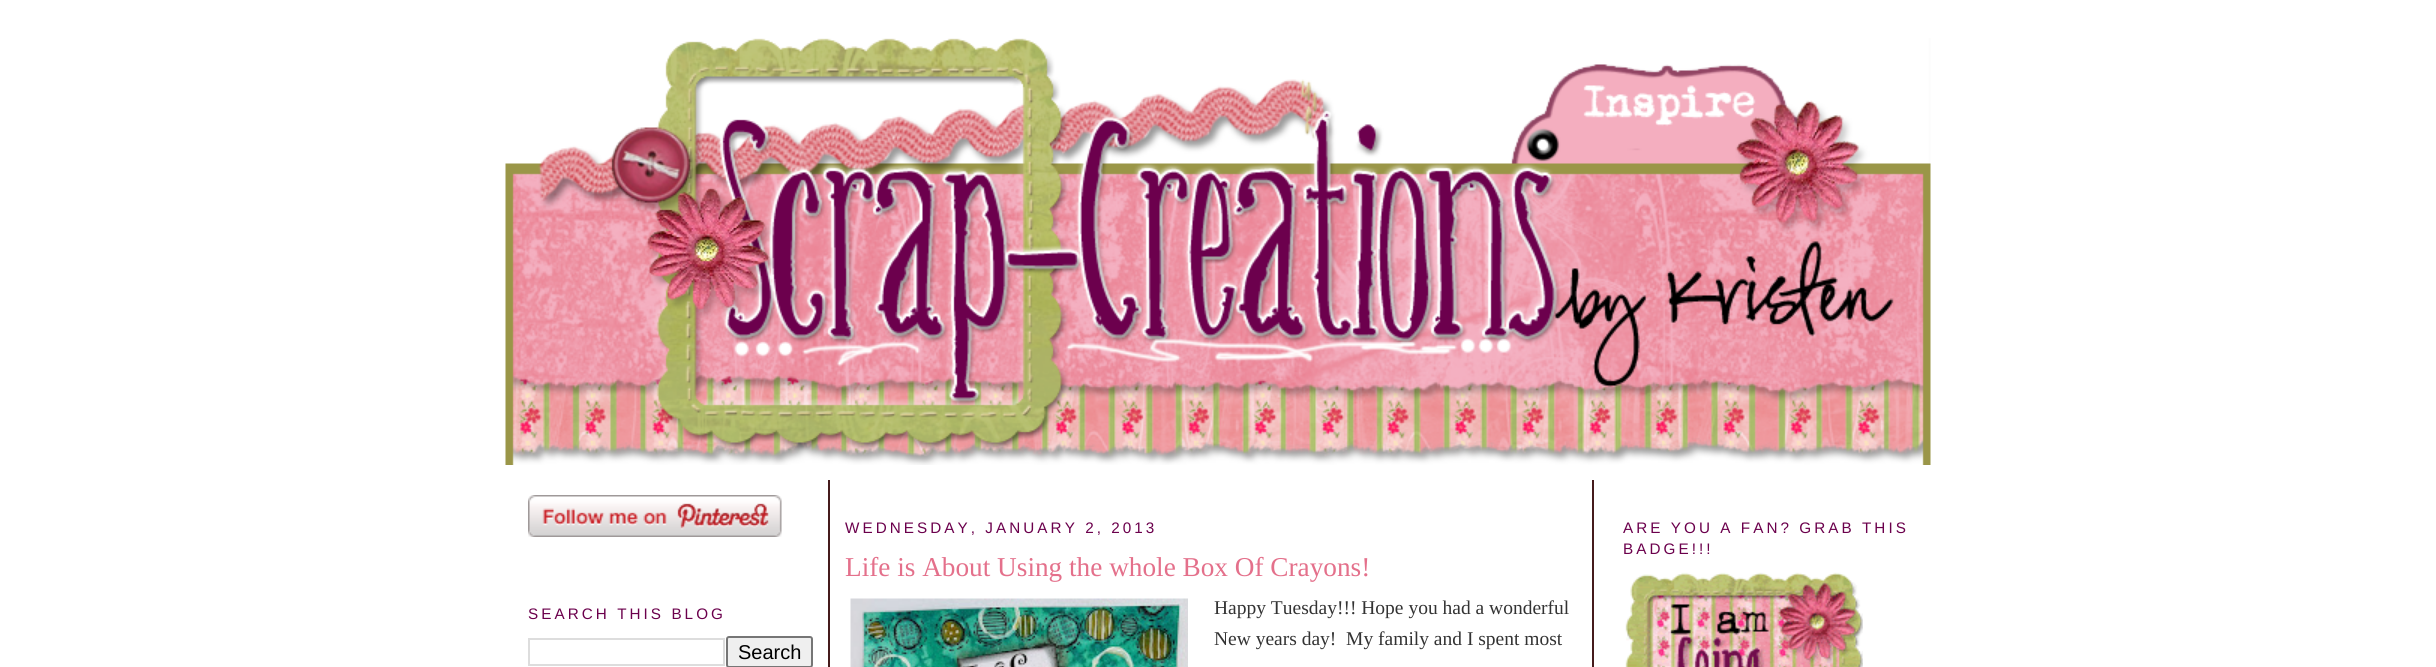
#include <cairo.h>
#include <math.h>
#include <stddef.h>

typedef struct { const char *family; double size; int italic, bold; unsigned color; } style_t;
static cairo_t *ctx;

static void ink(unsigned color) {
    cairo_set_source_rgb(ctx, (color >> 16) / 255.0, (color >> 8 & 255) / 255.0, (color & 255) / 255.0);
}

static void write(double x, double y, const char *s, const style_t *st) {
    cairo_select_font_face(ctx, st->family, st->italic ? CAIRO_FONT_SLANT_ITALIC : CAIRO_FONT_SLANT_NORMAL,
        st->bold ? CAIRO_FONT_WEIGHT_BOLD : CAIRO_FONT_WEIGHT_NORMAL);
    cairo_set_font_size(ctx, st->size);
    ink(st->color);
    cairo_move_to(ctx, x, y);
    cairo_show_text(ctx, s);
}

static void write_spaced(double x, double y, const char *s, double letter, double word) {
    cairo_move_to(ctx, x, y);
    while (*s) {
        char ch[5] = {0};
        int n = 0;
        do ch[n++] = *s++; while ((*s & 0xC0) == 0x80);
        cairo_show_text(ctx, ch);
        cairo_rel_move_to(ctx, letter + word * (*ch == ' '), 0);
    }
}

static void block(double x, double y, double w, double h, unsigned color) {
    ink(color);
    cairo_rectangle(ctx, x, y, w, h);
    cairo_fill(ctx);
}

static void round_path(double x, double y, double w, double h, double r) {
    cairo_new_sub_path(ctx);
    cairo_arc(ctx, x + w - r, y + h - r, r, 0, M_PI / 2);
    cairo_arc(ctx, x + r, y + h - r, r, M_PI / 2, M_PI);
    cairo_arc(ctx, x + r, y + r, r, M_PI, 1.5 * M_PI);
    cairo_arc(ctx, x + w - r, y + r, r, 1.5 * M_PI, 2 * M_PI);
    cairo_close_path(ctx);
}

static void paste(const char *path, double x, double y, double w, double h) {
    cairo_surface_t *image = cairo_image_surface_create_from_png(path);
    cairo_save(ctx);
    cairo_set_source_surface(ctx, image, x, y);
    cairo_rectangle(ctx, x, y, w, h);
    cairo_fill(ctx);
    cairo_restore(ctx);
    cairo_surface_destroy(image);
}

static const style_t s1 = {"Liberation Serif", 27.25, 0, 0, 0xe4708b};
static const style_t s2 = {"Liberation Serif", 19.5, 0, 0, 0x333333};
static const style_t s3 = {"Liberation Sans", 20, 0, 0, 0x000000};

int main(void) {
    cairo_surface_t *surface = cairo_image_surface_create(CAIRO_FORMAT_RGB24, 2436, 667);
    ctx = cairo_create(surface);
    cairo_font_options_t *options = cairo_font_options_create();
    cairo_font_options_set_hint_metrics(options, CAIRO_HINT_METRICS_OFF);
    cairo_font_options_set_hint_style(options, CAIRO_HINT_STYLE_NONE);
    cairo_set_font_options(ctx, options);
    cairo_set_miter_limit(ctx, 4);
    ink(0xffffff);
    cairo_paint(ctx);
    paste("pic1.png", 505, 38, 1426, 427);
    block(1592, 480, 2, 187, 0x451b1c);
    block(828, 480, 2, 187, 0x451b1c);
    cairo_select_font_face(ctx, "Liberation Sans", CAIRO_FONT_SLANT_NORMAL, CAIRO_FONT_WEIGHT_NORMAL);
    cairo_set_font_size(ctx, 15.25);
    ink(0x6b004c);
    write_spaced(845, 533, "WEDNESDAY, JANUARY 2, 2013", 3.05, 0);
    write(845, 576, "Life is About Using the whole Box Of Crayons!", &s1);
    paste("pic2.png", 850, 598, 338, 69);
    write(1214, 614, "Happy Tuesday!!! Hope you had a wonderful", &s2);
    write(1214, 645, "New years day!  My family and I spent most", &s2);
    cairo_select_font_face(ctx, "Liberation Sans", CAIRO_FONT_SLANT_NORMAL, CAIRO_FONT_WEIGHT_NORMAL);
    cairo_set_font_size(ctx, 15.25);
    ink(0x6b004c);
    write_spaced(1623, 533, "ARE YOU A FAN? GRAB THIS", 3.05, 0);
    write_spaced(1623, 554, "BADGE!!!", 3.05, 0);
    paste("pic3.png", 1625, 572, 238, 95);
    paste("pic4.png", 528, 495, 254, 42);
    write_spaced(528, 619, "SEARCH THIS BLOG", 3.05, 0);
    cairo_rectangle(ctx, 529, 639, 195, 26);
    ink(0xdddddd);
    cairo_stroke(ctx);
    ink(0xefefef);
    round_path(727, 637, 85, 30, 2);
    cairo_fill_preserve(ctx);
    ink(0x767676);
    cairo_stroke(ctx);
    write(738, 659, "Search", &s3);
    cairo_surface_write_to_png(surface, "screenshot.png");
    cairo_font_options_destroy(options);
    cairo_destroy(ctx);
    cairo_surface_destroy(surface);
    return 0;
}
